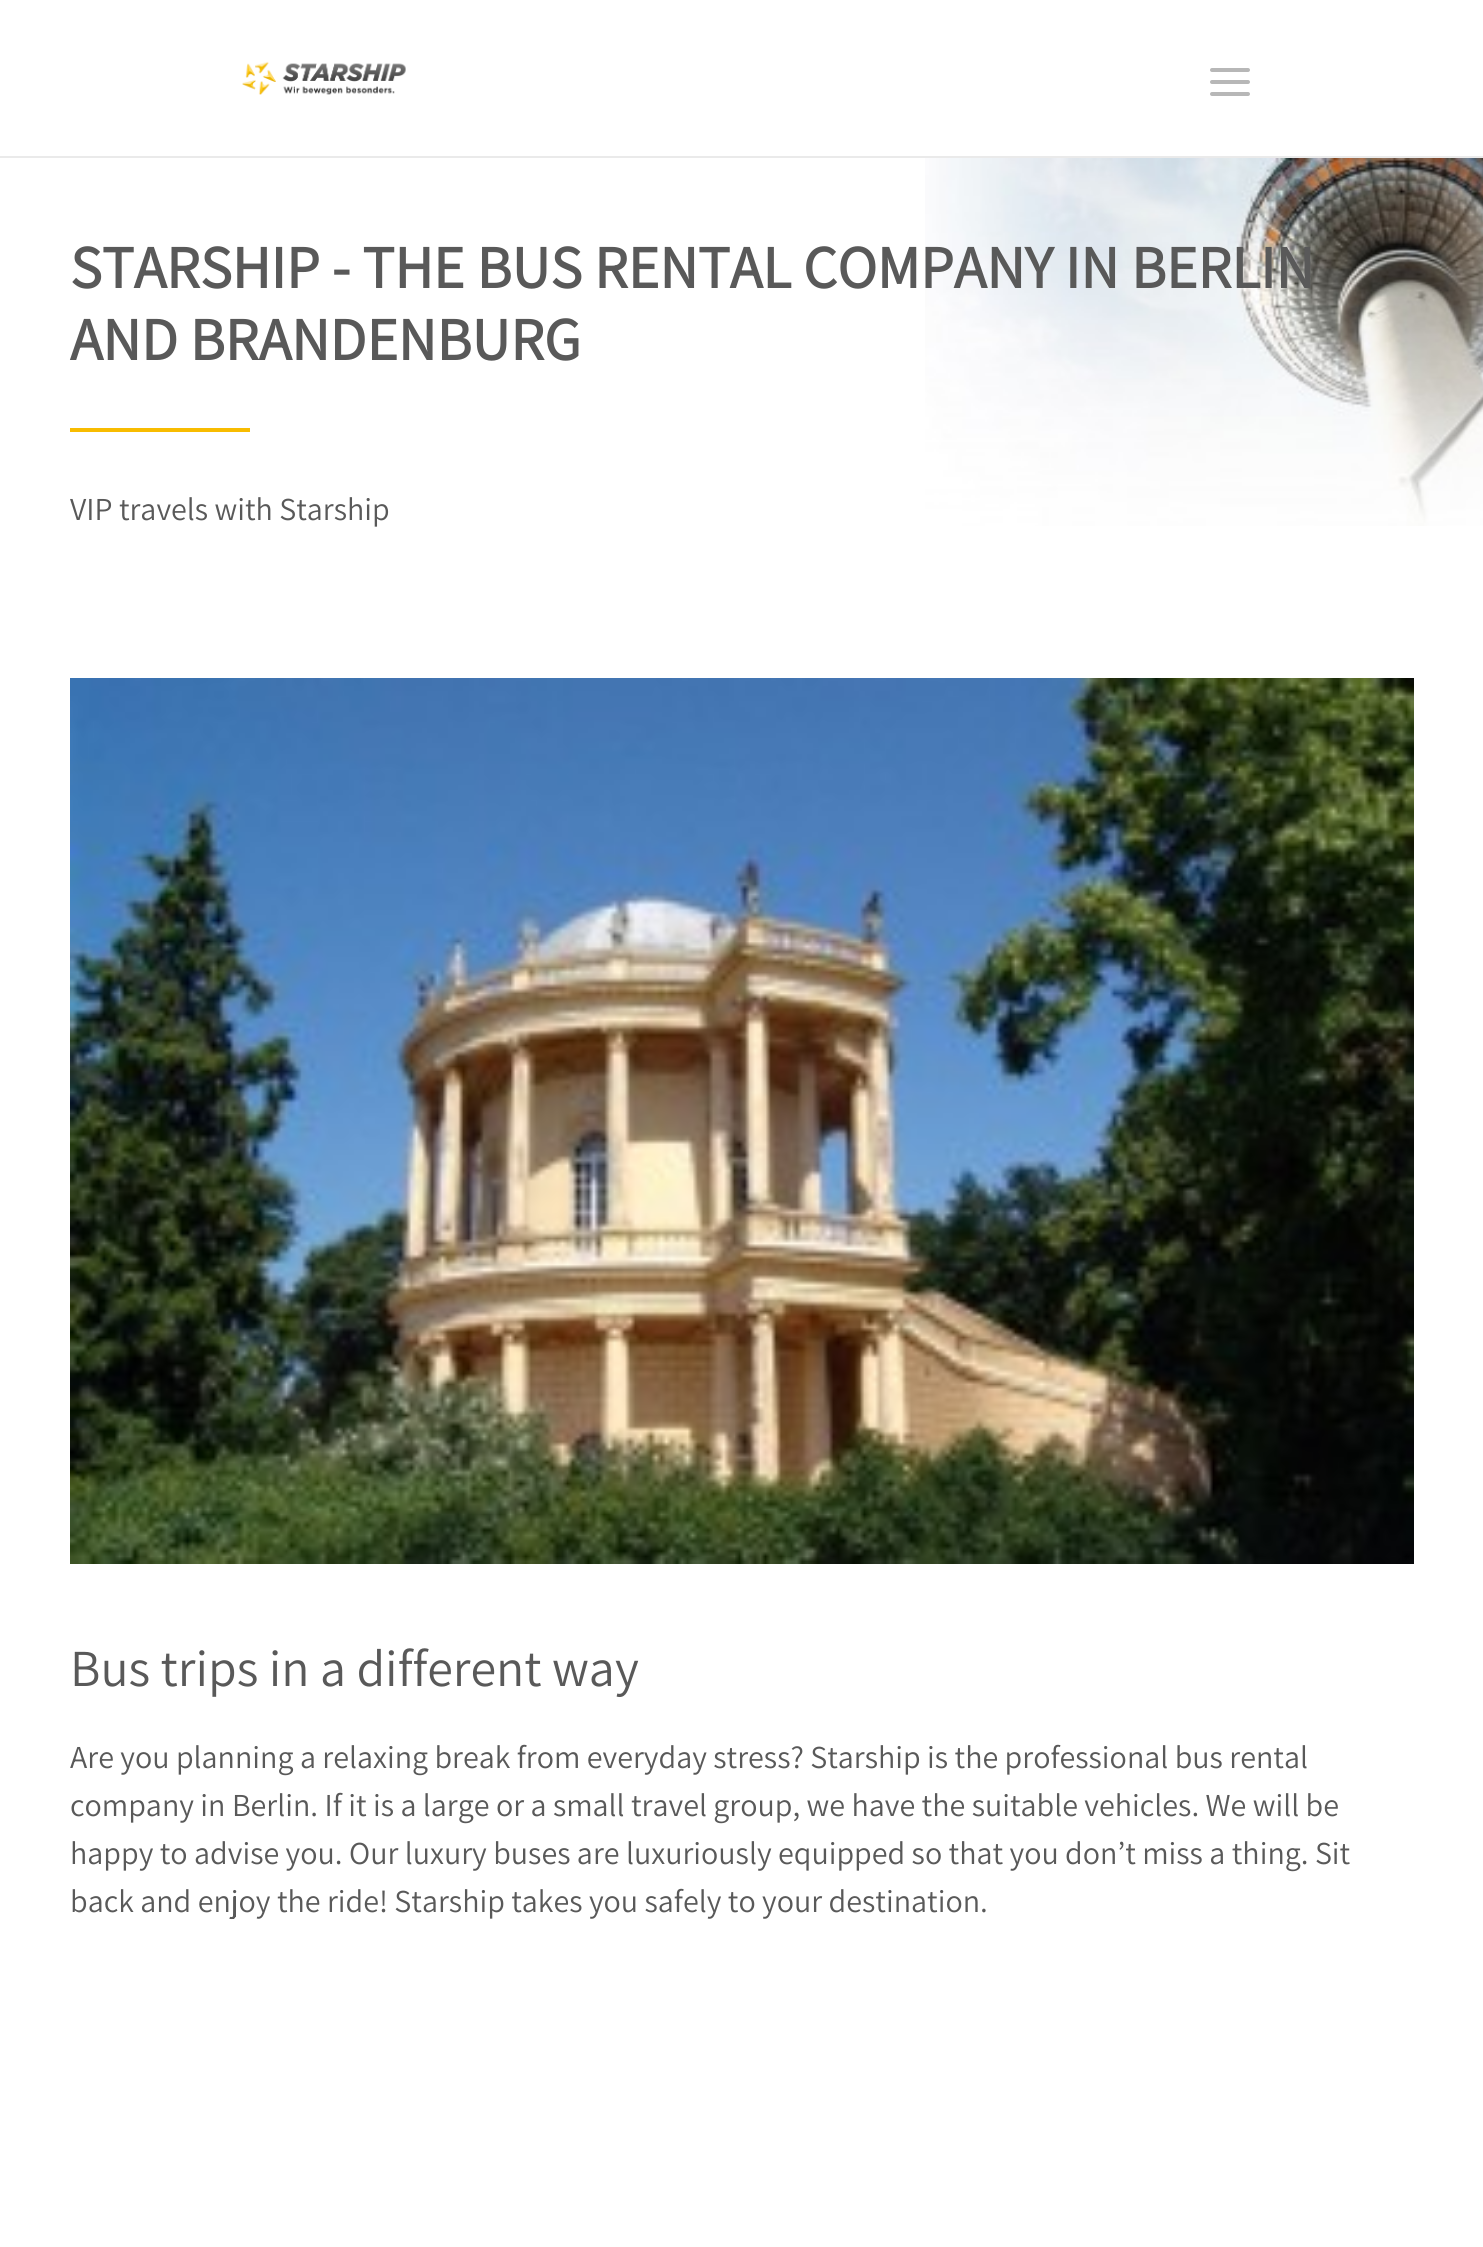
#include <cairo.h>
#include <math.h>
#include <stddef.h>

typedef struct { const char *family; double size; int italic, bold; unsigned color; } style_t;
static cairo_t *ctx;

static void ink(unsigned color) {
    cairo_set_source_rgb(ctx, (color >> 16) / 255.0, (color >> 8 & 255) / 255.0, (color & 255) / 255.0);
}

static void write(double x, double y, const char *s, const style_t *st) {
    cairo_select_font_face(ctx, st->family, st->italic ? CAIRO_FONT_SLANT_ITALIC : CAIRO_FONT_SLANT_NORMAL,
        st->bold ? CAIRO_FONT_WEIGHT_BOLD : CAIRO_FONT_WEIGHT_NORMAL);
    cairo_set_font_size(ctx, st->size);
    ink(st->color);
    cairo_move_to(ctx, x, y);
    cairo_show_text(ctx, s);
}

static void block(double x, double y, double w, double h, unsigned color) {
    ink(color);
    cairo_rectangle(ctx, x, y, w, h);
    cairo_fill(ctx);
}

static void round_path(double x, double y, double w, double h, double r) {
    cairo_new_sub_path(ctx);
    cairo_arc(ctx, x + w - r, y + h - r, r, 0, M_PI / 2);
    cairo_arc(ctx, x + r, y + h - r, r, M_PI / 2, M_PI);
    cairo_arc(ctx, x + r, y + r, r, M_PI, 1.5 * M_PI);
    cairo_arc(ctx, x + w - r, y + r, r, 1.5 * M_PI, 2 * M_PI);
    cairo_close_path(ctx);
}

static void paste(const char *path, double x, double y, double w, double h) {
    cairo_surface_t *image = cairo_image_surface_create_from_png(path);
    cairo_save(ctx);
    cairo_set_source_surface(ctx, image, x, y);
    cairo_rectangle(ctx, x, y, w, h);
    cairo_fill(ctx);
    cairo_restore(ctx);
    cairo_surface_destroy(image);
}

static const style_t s1 = {"Assistant", 60, 0, 1, 0x595959};
static const style_t s2 = {"Assistant ExtraLight", 32, 0, 0, 0x595959};
static const style_t s3 = {"Assistant ExtraLight", 52, 0, 0, 0x595959};

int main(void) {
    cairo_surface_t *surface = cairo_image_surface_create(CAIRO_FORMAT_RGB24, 1483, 2247);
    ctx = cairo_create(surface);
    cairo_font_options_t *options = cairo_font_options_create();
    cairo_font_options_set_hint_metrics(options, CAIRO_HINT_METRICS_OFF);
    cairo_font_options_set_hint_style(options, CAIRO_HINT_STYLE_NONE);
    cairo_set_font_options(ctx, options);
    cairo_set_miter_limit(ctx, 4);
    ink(0xffffff);
    cairo_paint(ctx);
    block(0, 156, 1483, 2, 0xeaeaea);
    paste("pic1.png", 242, 61, 164, 34);
    ink(0xb7b7b7);
    round_path(1210, 80, 40, 4, 2);
    cairo_fill(ctx);
    round_path(1210, 68, 40, 4, 2);
    cairo_fill(ctx);
    round_path(1210, 92, 40, 4, 2);
    cairo_fill(ctx);
    paste("pic2.png", 925, 158, 558, 368);
    write(70, 288, "STARSHIP - THE BUS RENTAL COMPANY IN BERLIN", &s1);
    write(70, 360, "AND BRANDENBURG", &s1);
    block(70, 428, 180, 4, 0xf8bc00);
    write(70, 520, "VIP travels with Starship", &s2);
    paste("pic3.png", 70, 678, 1344, 886);
    write(70, 1686, "Bus trips in a different way", &s3);
    write(70, 1768, "Are you planning a relaxing break from everyday stress? Starship is the professional bus rental", &s2);
    write(70, 1816, "company in Berlin. If it is a large or a small travel group, we have the suitable vehicles. We will be", &s2);
    write(70, 1864, "happy to advise you. Our luxury buses are luxuriously equipped so that you don’t miss a thing. Sit", &s2);
    write(70, 1912, "back and enjoy the ride! Starship takes you safely to your destination.", &s2);
    cairo_surface_write_to_png(surface, "screenshot.png");
    cairo_font_options_destroy(options);
    cairo_destroy(ctx);
    cairo_surface_destroy(surface);
    return 0;
}
